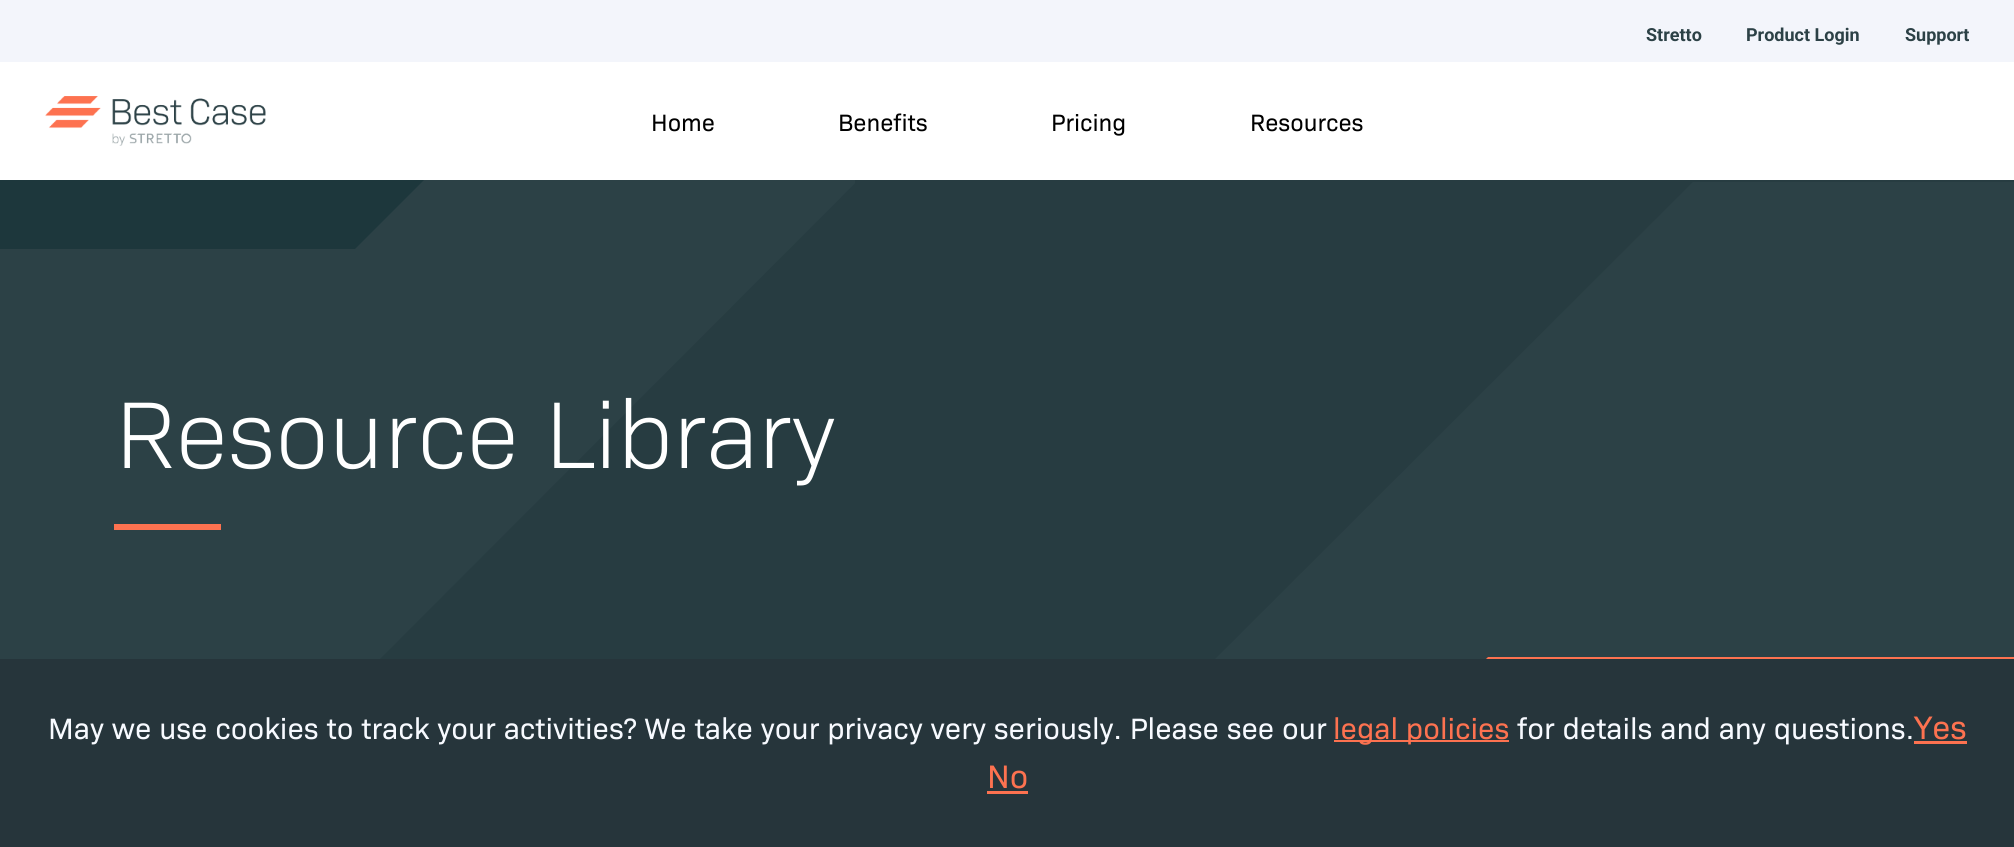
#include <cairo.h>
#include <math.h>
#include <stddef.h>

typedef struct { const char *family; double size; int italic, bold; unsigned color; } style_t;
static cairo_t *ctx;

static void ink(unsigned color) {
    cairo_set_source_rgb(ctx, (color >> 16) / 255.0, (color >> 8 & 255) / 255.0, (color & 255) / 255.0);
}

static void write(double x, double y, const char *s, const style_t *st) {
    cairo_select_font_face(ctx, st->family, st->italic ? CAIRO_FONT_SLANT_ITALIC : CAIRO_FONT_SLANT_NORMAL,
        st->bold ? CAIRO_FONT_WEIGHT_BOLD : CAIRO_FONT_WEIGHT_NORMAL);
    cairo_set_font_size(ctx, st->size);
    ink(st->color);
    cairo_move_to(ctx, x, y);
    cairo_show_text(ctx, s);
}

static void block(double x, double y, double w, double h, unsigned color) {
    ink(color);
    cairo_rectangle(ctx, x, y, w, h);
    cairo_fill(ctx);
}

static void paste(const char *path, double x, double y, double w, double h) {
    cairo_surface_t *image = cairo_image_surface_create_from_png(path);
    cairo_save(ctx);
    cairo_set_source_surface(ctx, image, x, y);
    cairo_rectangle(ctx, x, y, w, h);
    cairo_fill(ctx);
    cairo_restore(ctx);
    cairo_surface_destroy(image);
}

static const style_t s1 = {"Roboto", 18, 0, 1, 0x2c4146};
static const style_t s2 = {"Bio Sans", 24, 0, 0, 0x000000};
static const style_t s3 = {"Bio Sans Light", 96, 0, 0, 0xffffff};
static const style_t s4 = {"Bio Sans", 29.85, 0, 0, 0xf7faff};
static const style_t s5 = {"Bio Sans", 29.85, 0, 0, 0xfd7250};
static const style_t s6 = {"Bio Sans", 33, 0, 0, 0xfd7250};

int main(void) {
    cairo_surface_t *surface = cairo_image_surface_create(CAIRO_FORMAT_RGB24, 2014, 847);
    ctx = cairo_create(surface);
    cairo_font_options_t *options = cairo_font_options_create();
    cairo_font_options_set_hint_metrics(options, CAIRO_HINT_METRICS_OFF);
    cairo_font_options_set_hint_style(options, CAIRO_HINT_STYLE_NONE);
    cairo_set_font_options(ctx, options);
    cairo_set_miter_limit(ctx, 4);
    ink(0xffffff);
    cairo_paint(ctx);
    block(0, 0, 2014, 62, 0xf3f5fb);
    write(1646, 41, "Stretto", &s1);
    write(1746, 41, "Product Login", &s1);
    write(1905, 41, "Support", &s1);
    paste("pic1.png", 45, 96, 221, 50);
    write(651, 131, "Home", &s2);
    write(838, 131, "Benefits", &s2);
    write(1051, 131, "Pricing", &s2);
    write(1250, 131, "Resources", &s2);
    block(380, 180, 1634, 479, 0x273c41);
    cairo_save(ctx);
    cairo_rectangle(ctx, 0, 180, 855, 504);
    cairo_clip(ctx);
    ink(0x2c4146);
    cairo_new_path(ctx);
    cairo_move_to(ctx, 0, 684);
    cairo_line_to(ctx, 0, -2);
    cairo_line_to(ctx, 1040, -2);
    cairo_line_to(ctx, 355, 684);
    cairo_close_path(ctx);
    cairo_fill(ctx);
    ink(0x1d373c);
    cairo_new_path(ctx);
    cairo_move_to(ctx, 438, 166);
    cairo_line_to(ctx, 355, 249);
    cairo_line_to(ctx, 0, 249);
    cairo_line_to(ctx, 0, 166);
    cairo_close_path(ctx);
    cairo_fill(ctx);
    cairo_restore(ctx);
    cairo_save(ctx);
    cairo_rectangle(ctx, 1124, 182, 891, 568);
    cairo_clip(ctx);
    ink(0x2c4146);
    cairo_new_path(ctx);
    cairo_move_to(ctx, 1734, 141);
    cairo_line_to(ctx, 1123, 751);
    cairo_line_to(ctx, 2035, 751);
    cairo_line_to(ctx, 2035, 141);
    cairo_close_path(ctx);
    cairo_fill(ctx);
    cairo_restore(ctx);
    ink(0xfd7250);
    cairo_new_path(ctx);
    cairo_move_to(ctx, 1488, 657);
    cairo_line_to(ctx, 1393, 751);
    cairo_line_to(ctx, 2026, 751);
    cairo_line_to(ctx, 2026, 657);
    cairo_close_path(ctx);
    cairo_fill(ctx);
    write(115, 468, "Resource Library", &s3);
    block(114, 524, 107, 6, 0xfd7250);
    block(0, 659, 2014, 188, 0x26353b);
    write(48, 739, "May we use cookies to track your activities? We take your privacy very seriously. Please see our", &s4);
    block(1334, 740, 175, 2, 0xfd7250);
    write(1333, 739, "legal policies", &s5);
    write(1517, 739, "for details and any questions.", &s4);
    write(1914, 739, "Yes", &s6);
    block(1914, 741, 53, 3, 0xfd7250);
    write(987, 788, "No", &s6);
    block(987, 791, 41, 3, 0xfd7250);
    cairo_surface_write_to_png(surface, "screenshot.png");
    cairo_font_options_destroy(options);
    cairo_destroy(ctx);
    cairo_surface_destroy(surface);
    return 0;
}
